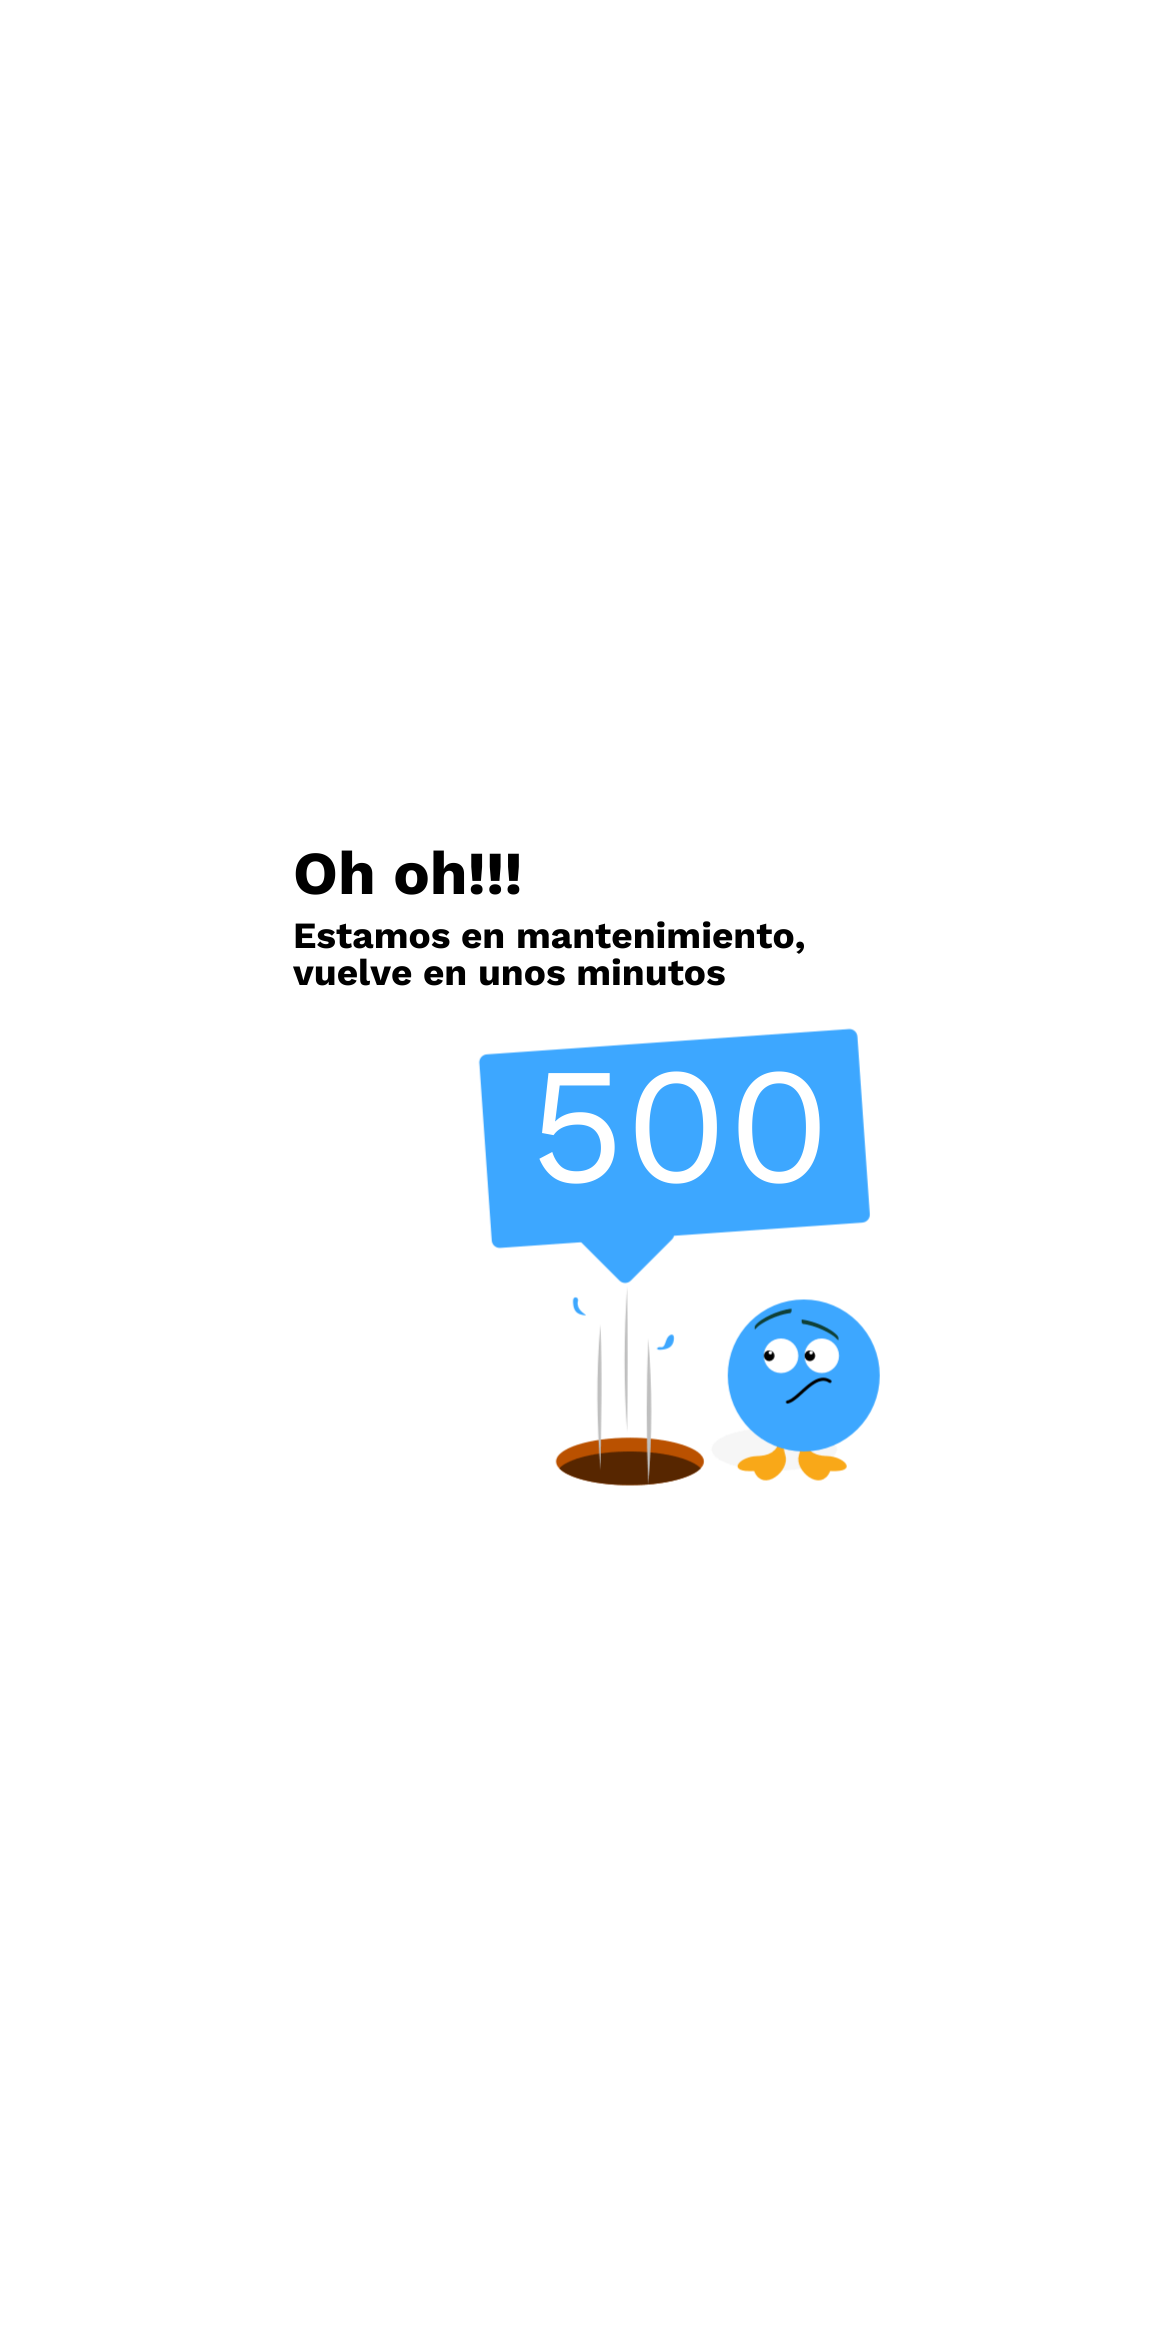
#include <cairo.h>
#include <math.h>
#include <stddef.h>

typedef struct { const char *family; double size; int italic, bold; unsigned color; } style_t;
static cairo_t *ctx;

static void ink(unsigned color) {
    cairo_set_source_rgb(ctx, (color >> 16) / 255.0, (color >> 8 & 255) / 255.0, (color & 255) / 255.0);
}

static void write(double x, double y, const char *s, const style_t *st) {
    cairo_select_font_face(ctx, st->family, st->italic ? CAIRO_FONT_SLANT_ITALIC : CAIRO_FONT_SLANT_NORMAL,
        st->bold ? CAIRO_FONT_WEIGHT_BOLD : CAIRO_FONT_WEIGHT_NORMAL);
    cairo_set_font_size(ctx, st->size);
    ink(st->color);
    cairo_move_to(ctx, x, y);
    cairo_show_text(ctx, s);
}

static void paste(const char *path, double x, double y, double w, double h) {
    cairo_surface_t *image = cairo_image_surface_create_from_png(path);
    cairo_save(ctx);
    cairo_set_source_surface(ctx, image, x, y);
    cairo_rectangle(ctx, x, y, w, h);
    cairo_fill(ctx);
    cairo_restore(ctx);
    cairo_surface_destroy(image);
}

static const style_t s1 = {"Work Sans", 61, 0, 1, 0x000000};
static const style_t s2 = {"Work Sans", 37, 0, 1, 0x000000};
static const style_t s3 = {"Work Sans", 165, 0, 0, 0xffffff};

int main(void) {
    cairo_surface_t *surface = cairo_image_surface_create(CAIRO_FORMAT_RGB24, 1173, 2342);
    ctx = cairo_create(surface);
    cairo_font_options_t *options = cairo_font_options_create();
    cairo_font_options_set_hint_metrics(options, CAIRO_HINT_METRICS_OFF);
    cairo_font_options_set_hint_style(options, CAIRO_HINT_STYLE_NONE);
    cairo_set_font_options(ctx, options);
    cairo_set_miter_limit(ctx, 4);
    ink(0xffffff);
    cairo_paint(ctx);
    write(293, 894, "Oh oh!!!", &s1);
    write(293, 948, "Estamos en mantenimiento,", &s2);
    write(293, 985, "vuelve en unos minutos", &s2);
    paste("pic1.png", 478, 1028, 402, 458);
    write(529, 1182, "500", &s3);
    cairo_surface_write_to_png(surface, "screenshot.png");
    cairo_font_options_destroy(options);
    cairo_destroy(ctx);
    cairo_surface_destroy(surface);
    return 0;
}
